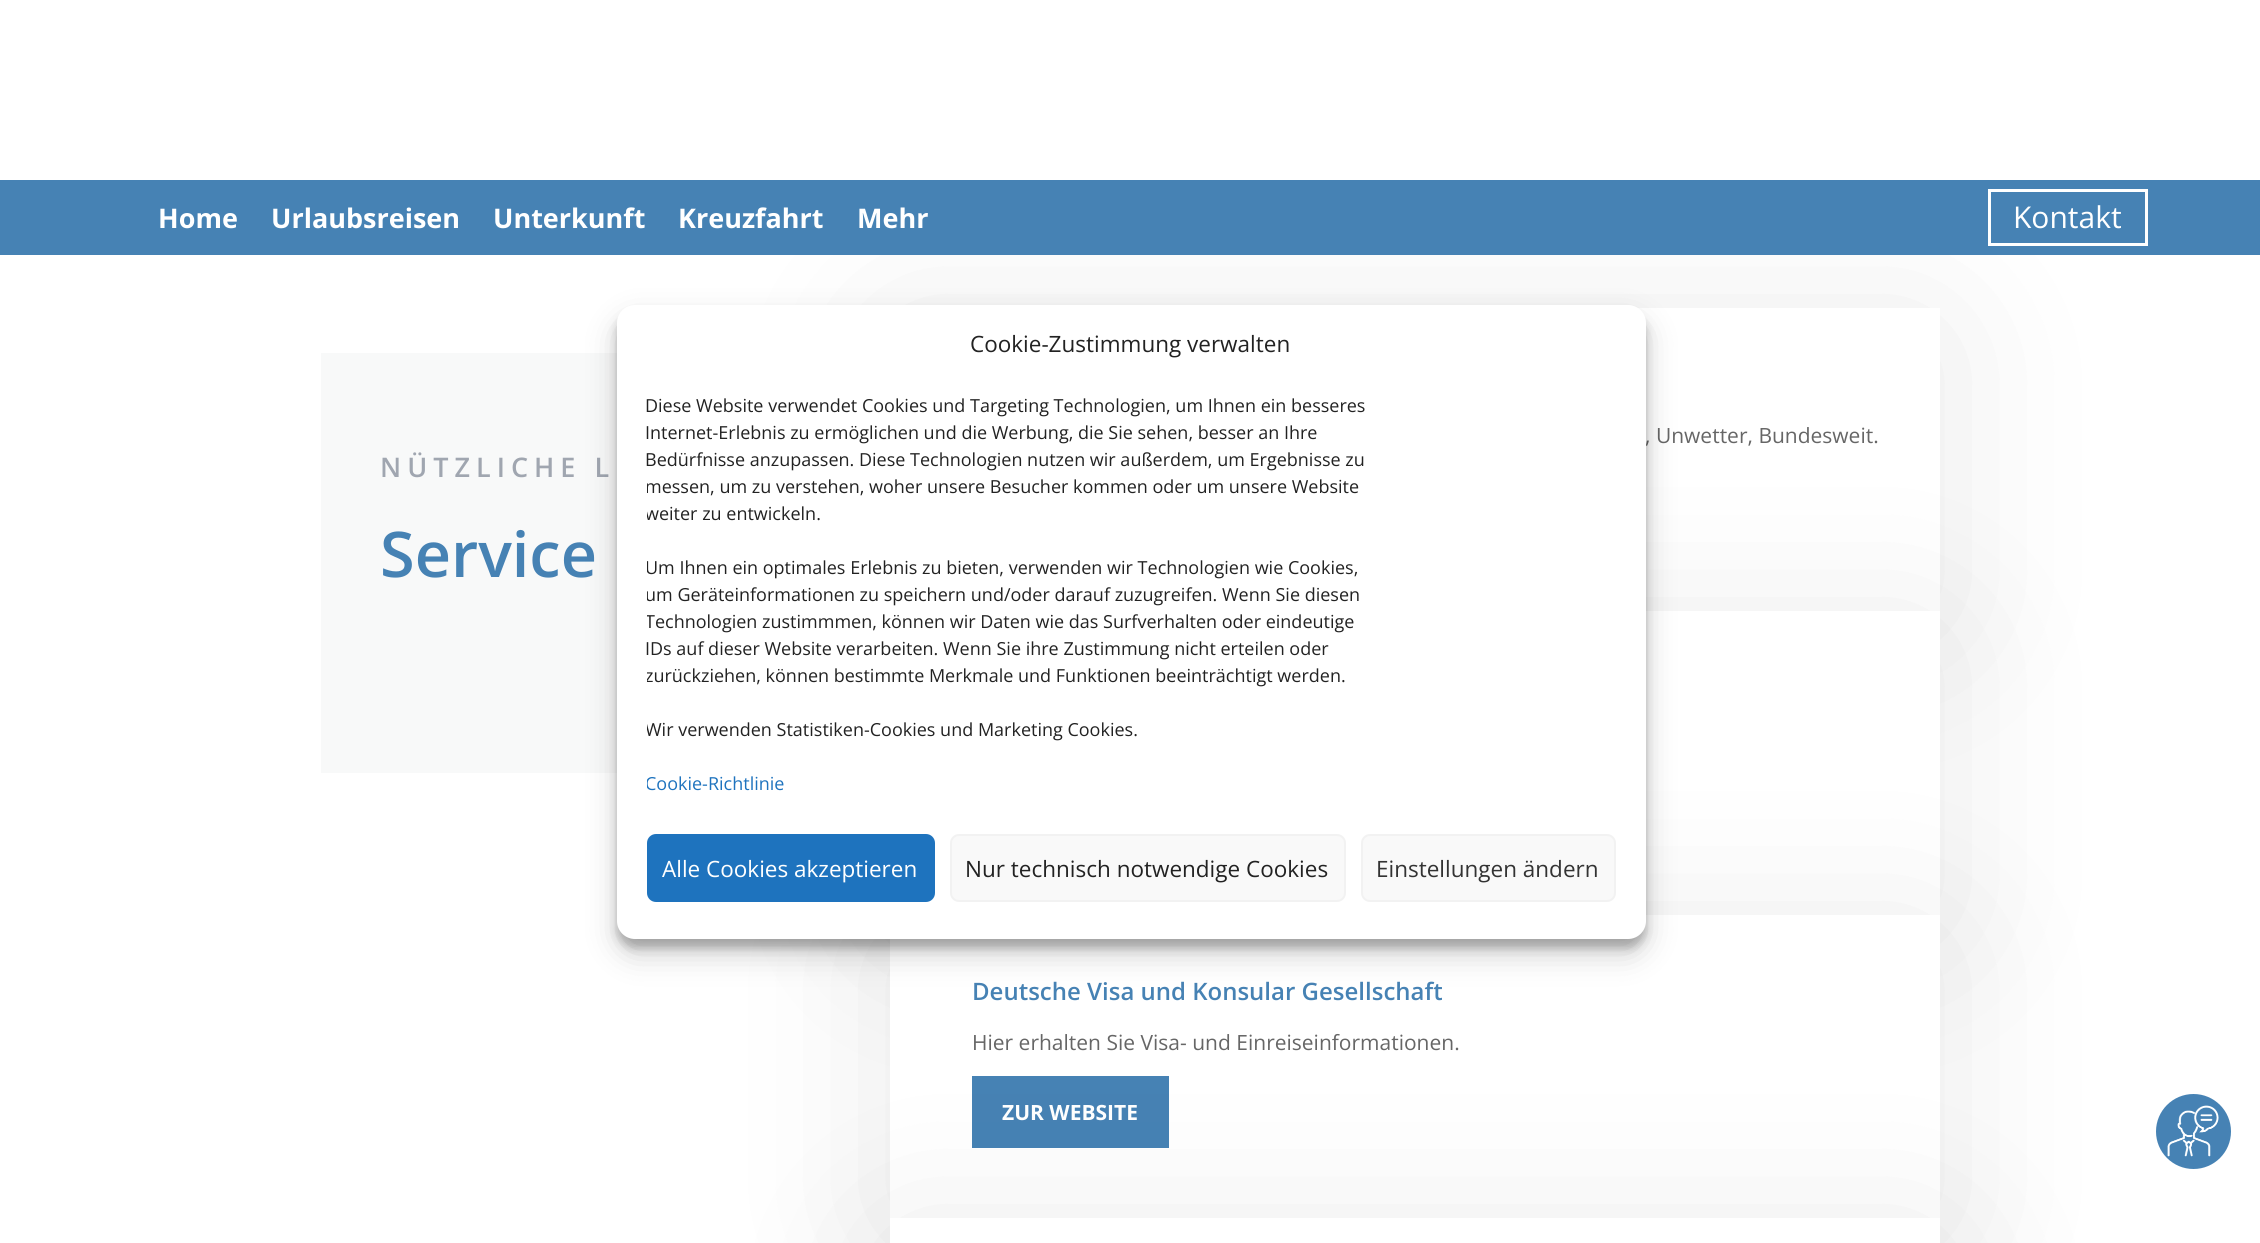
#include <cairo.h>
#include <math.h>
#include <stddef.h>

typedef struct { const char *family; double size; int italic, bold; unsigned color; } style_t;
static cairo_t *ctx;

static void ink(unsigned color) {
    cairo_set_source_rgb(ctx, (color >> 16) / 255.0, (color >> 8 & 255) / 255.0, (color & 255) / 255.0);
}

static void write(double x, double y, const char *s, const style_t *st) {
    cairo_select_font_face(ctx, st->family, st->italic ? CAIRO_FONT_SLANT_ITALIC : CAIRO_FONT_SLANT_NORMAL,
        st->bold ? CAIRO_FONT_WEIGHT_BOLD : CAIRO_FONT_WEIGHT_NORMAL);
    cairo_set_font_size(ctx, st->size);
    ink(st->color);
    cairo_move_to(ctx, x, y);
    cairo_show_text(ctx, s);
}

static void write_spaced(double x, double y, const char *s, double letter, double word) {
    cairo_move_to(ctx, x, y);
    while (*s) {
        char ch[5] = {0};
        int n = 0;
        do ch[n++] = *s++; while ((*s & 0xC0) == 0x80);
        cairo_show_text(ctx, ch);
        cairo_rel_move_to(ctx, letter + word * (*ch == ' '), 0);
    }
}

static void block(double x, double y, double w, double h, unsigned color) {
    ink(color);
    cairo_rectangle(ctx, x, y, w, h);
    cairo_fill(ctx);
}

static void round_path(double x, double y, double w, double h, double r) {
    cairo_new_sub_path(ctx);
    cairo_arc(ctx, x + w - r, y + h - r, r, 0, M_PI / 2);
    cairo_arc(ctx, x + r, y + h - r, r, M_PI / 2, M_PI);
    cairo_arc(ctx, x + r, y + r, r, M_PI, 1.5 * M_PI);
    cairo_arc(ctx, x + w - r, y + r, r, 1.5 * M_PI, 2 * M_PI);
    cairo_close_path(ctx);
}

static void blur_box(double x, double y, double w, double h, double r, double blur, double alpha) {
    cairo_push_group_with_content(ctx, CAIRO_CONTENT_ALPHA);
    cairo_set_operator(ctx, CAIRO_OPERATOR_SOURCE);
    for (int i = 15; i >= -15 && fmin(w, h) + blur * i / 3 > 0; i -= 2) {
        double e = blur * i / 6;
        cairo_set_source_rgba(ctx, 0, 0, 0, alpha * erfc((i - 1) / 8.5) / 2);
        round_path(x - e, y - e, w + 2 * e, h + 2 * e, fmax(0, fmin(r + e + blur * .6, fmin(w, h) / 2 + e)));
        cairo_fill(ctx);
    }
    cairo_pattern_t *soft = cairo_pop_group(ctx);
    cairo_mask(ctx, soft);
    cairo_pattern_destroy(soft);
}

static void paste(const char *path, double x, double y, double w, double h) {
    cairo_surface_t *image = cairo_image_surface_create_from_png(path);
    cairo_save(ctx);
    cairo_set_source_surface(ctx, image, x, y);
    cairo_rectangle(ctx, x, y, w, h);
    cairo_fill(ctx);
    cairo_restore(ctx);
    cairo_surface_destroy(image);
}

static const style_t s1 = {"Open Sans", 27, 0, 1, 0xffffff};
static const style_t s2 = {"Open Sans", 30, 0, 0, 0xffffff};
static const style_t s3 = {"Open Sans SemiBold", 63, 0, 0, 0x4682b4};
static const style_t s4 = {"Open Sans", 21, 0, 0, 0x666666};
static const style_t s5 = {"Open Sans SemiBold", 24, 0, 0, 0x4682b4};
static const style_t s6 = {"Open Sans", 21, 0, 1, 0xffffff};
static const style_t s7 = {"Open Sans", 22.5, 0, 0, 0x222222};
static const style_t s8 = {"Open Sans", 18, 0, 0, 0x222222};
static const style_t s9 = {"Open Sans", 18, 0, 0, 0x1e73be};
static const style_t s10 = {"Open Sans", 22.5, 0, 0, 0xffffff};
static const style_t s11 = {"Open Sans", 22.5, 0, 0, 0x333333};

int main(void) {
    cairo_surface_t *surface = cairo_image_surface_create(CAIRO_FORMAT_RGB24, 2260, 1243);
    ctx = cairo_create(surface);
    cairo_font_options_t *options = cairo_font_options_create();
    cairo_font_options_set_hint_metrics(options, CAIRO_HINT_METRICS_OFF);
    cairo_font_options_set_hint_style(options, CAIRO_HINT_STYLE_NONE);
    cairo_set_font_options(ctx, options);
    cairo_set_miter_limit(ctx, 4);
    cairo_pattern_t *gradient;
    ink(0xffffff);
    cairo_paint(ctx);
    ink(0x000000);
    blur_box(899, 335, 1032, 285, 0, 82.5, 0.1);
    block(0, 180, 2260, 75, 0x4682b4);
    write(158, 228, "Home", &s1);
    write(271, 228, "Urlaubsreisen", &s1);
    write(493, 228, "Unterkunft", &s1);
    write(678, 228, "Kreuzfahrt", &s1);
    write(857, 228, "Mehr", &s1);
    cairo_rectangle(ctx, 1989.5, 190.5, 157, 54);
    cairo_set_line_width(ctx, 3);
    cairo_stroke(ctx);
    write(2013, 228, "Kontakt", &s2);
    gradient = cairo_pattern_create_linear(321, 563, 801, 563);
    cairo_pattern_add_color_stop_rgba(gradient, 0.57, 0.973, 0.976, 0.976, 1);
    cairo_pattern_add_color_stop_rgba(gradient, 1, 1, 1, 1, 1);
    cairo_set_source(ctx, gradient);
    cairo_pattern_destroy(gradient);
    cairo_rectangle(ctx, 321, 353, 296, 420);
    cairo_fill(ctx);
    cairo_select_font_face(ctx, "Open Sans SemiBold", CAIRO_FONT_SLANT_NORMAL, CAIRO_FONT_WEIGHT_NORMAL);
    cairo_set_font_size(ctx, 27);
    ink(0xa0a6b0);
    write_spaced(380, 477, "NÜTZLICHE L", 6, 0);
    write(380, 577, "Service", &s3);
    block(1638, 308, 302, 303, 0xffffff);
    ink(0x000000);
    blur_box(899, 638, 1032, 286, 0, 82.5, 0.1);
    block(1646, 611, 294, 304, 0xffffff);
    write(1645, 443, ", Unwetter, Bundesweit.", &s4);
    ink(0x000000);
    blur_box(899, 942, 1032, 285, 0, 82.5, 0.1);
    block(890, 915, 1050, 303, 0xffffff);
    write(972, 1000, "Deutsche Visa und Konsular Gesellschaft", &s5);
    write(972, 1050, "Hier erhalten Sie Visa- und Einreiseinformationen.", &s4);
    block(972, 1076, 197, 72, 0x4682b4);
    write(1002, 1120, "ZUR WEBSITE", &s6);
    ink(0x000000);
    blur_box(899, 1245, 1032, 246, 0, 82.5, 0.1);
    block(890, 1218, 1050, 25, 0xffffff);
    ink(0x4682b4);
    cairo_arc(ctx, 2193.5, 1131.5, 37.5, 0, 2 * M_PI);
    cairo_fill(ctx);
    paste("pic1.png", 2167, 1105, 52, 52);
    ink(0x000000);
    blur_box(617, 314, 1029, 634, 18, 4.5, 0.23);
    blur_box(617, 320, 1029, 634, 18, 15, 0.19);
    ink(0xffffff);
    round_path(617, 305, 1029, 634, 18);
    cairo_fill(ctx);
    write(970, 352, "Cookie-Zustimmung verwalten", &s7);
    write(645, 412, "Diese Website verwendet Cookies und Targeting Technologien, um Ihnen ein besseres", &s8);
    write(645, 439, "Internet-Erlebnis zu ermöglichen und die Werbung, die Sie sehen, besser an Ihre", &s8);
    write(645, 466, "Bedürfnisse anzupassen. Diese Technologien nutzen wir außerdem, um Ergebnisse zu", &s8);
    cairo_save(ctx);
    cairo_rectangle(ctx, 647, 392, 969, 412);
    cairo_clip(ctx);
    write(645, 493, "messen, um zu verstehen, woher unsere Besucher kommen oder um unsere Website", &s8);
    write(645, 520, "weiter zu entwickeln.", &s8);
    write(645, 574, "Um Ihnen ein optimales Erlebnis zu bieten, verwenden wir Technologien wie Cookies,", &s8);
    write(645, 601, "um Geräteinformationen zu speichern und/oder darauf zuzugreifen. Wenn Sie diesen", &s8);
    write(645, 628, "Technologien zustimmmen, können wir Daten wie das Surfverhalten oder eindeutige", &s8);
    cairo_restore(ctx);
    write(645, 655, "IDs auf dieser Website verarbeiten. Wenn Sie ihre Zustimmung nicht erteilen oder", &s8);
    cairo_save(ctx);
    cairo_rectangle(ctx, 647, 392, 969, 412);
    cairo_clip(ctx);
    write(645, 682, "zurückziehen, können bestimmte Merkmale und Funktionen beeinträchtigt werden.", &s8);
    write(645, 736, "Wir verwenden Statistiken-Cookies und Marketing Cookies.", &s8);
    write(645, 790, "Cookie-Richtlinie", &s9);
    cairo_restore(ctx);
    ink(0x1e73be);
    round_path(648, 835, 286, 66, 8);
    cairo_fill_preserve(ctx);
    cairo_set_line_width(ctx, 2);
    cairo_stroke(ctx);
    write(662, 877, "Alle Cookies akzeptieren", &s10);
    ink(0xf9f9f9);
    round_path(951, 835, 394, 66, 8);
    cairo_fill_preserve(ctx);
    ink(0xf2f2f2);
    cairo_stroke(ctx);
    write(965, 877, "Nur technisch notwendige Cookies", &s7);
    ink(0xf9f9f9);
    round_path(1362, 835, 253, 66, 8);
    cairo_fill_preserve(ctx);
    ink(0xf2f2f2);
    cairo_stroke(ctx);
    write(1376, 877, "Einstellungen ändern", &s11);
    cairo_surface_write_to_png(surface, "screenshot.png");
    cairo_font_options_destroy(options);
    cairo_destroy(ctx);
    cairo_surface_destroy(surface);
    return 0;
}
